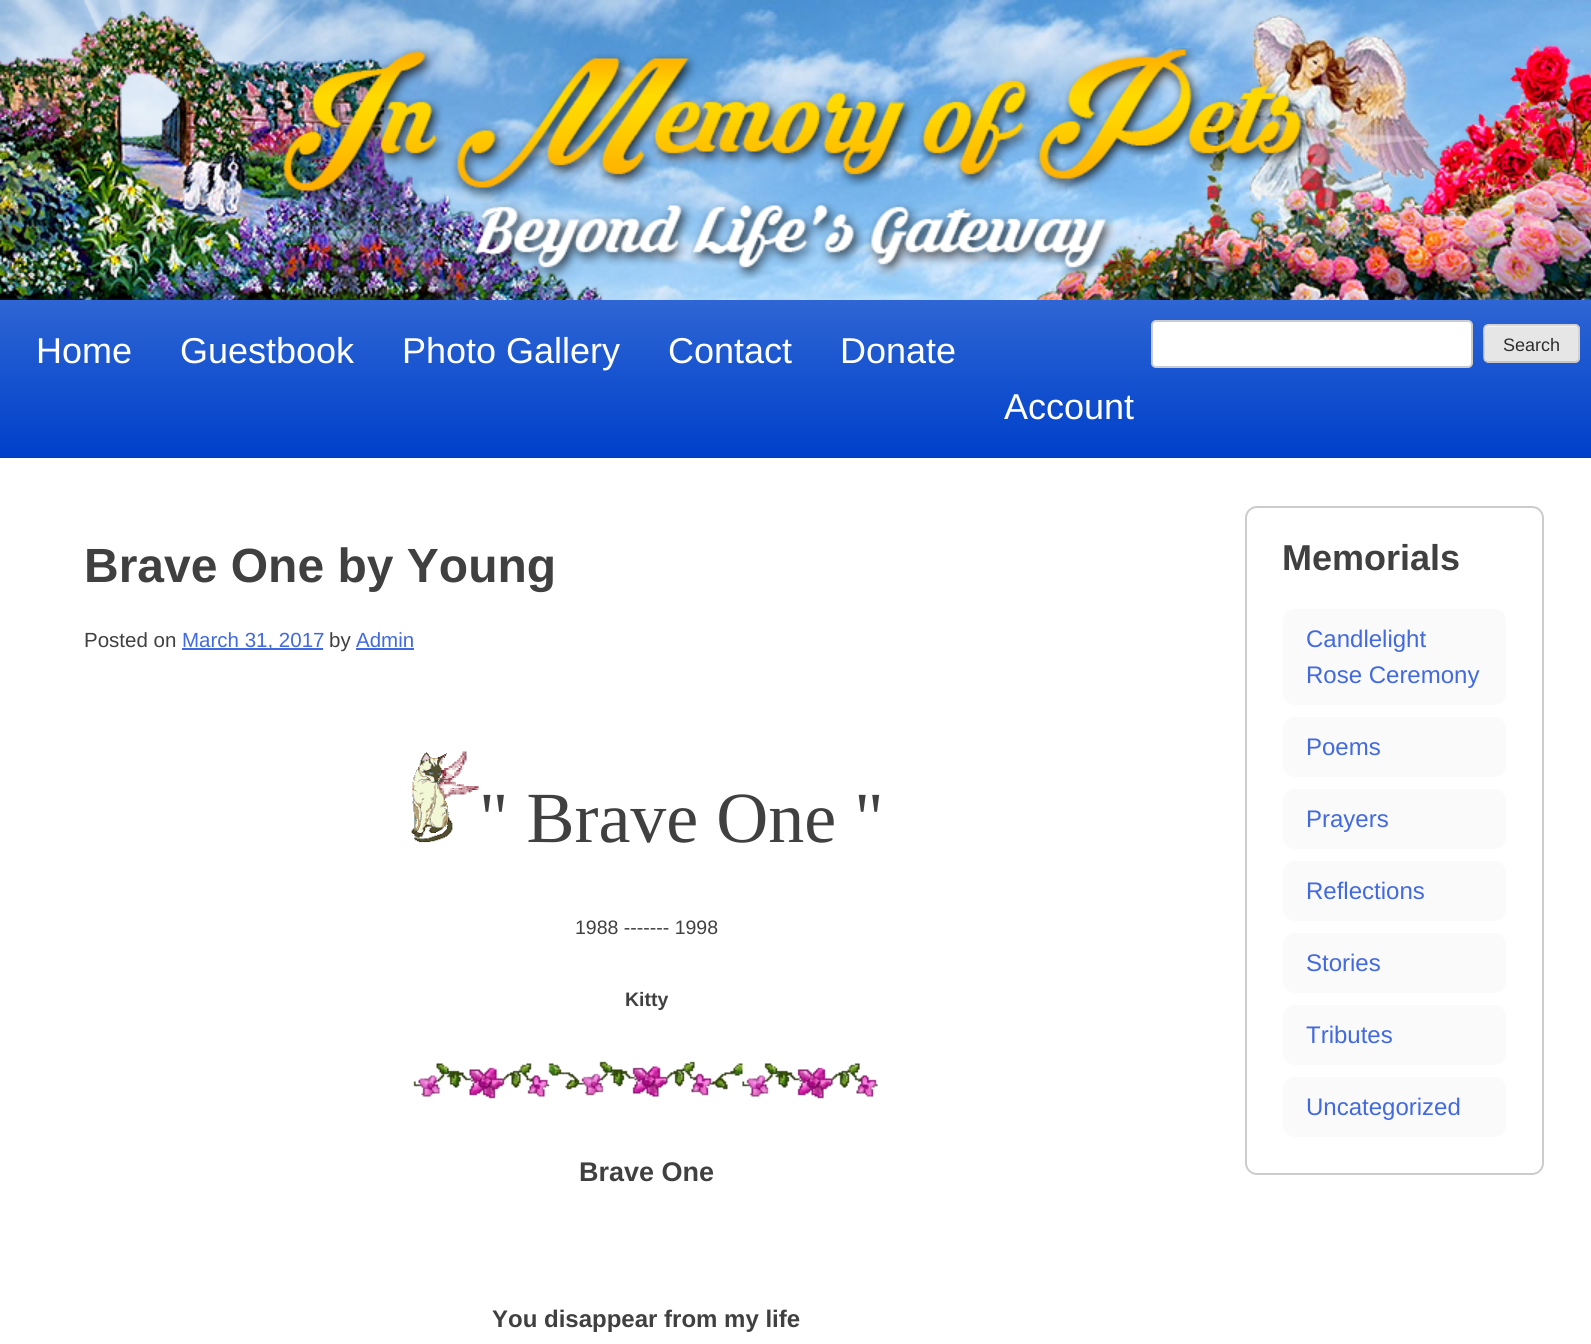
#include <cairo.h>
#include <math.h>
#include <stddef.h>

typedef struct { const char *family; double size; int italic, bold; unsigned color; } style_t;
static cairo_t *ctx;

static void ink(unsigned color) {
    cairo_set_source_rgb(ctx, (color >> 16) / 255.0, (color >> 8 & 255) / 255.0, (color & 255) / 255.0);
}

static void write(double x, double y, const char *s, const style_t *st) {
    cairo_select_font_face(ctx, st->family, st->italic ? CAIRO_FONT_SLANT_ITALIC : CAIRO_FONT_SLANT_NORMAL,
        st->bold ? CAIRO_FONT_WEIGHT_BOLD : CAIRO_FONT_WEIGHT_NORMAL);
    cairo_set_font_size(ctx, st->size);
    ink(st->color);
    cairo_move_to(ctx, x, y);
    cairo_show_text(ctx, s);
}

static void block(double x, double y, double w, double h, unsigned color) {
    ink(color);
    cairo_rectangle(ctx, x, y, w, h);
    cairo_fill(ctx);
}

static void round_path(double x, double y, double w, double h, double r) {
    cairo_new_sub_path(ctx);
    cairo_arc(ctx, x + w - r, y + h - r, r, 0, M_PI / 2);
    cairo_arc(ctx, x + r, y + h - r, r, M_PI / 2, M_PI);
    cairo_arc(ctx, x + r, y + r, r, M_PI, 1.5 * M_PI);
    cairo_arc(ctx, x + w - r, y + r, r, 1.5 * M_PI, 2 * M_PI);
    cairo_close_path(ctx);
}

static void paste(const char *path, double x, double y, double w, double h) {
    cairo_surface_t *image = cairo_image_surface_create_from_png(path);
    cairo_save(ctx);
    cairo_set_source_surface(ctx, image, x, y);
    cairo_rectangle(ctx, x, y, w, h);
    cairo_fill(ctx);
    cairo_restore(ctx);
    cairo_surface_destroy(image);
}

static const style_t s1 = {"Liberation Sans", 36, 0, 0, 0xffffff};
static const style_t s2 = {"Liberation Sans", 18, 0, 0, 0x2e2e2e};
static const style_t s3 = {"Liberation Sans", 48, 0, 1, 0x404040};
static const style_t s4 = {"Liberation Sans", 20.5, 0, 0, 0x404040};
static const style_t s5 = {"Liberation Sans", 20.5, 0, 0, 0x4169e1};
static const style_t s6 = {"Liberation Serif", 72, 0, 0, 0x404040};
static const style_t s7 = {"Liberation Sans", 19.5, 0, 0, 0x404040};
static const style_t s8 = {"Liberation Sans", 19.5, 0, 1, 0x404040};
static const style_t s9 = {"Liberation Sans", 27, 0, 1, 0x404040};
static const style_t s10 = {"Liberation Sans", 24, 0, 1, 0x404040};
static const style_t s11 = {"Liberation Sans", 36, 0, 1, 0x404040};
static const style_t s12 = {"Liberation Sans", 24, 0, 0, 0x4169e1};

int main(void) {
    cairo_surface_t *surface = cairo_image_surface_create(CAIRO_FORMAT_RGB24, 1591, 1344);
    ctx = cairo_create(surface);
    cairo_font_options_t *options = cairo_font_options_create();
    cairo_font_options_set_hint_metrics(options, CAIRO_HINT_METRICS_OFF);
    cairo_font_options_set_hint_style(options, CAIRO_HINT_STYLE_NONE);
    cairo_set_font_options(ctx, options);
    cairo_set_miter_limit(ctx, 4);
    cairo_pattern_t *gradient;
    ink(0xffffff);
    cairo_paint(ctx);
    paste("pic1.png", 0, 0, 1591, 300);
    paste("pic2.png", 278, 48, 1034, 232);
    gradient = cairo_pattern_create_linear(796, 300, 796, 458);
    cairo_pattern_add_color_stop_rgba(gradient, 0, 0.184, 0.396, 0.831, 1);
    cairo_pattern_add_color_stop_rgba(gradient, 0.5, 0.086, 0.325, 0.812, 1);
    cairo_pattern_add_color_stop_rgba(gradient, 1, 0, 0.247, 0.792, 1);
    cairo_set_source(ctx, gradient);
    cairo_pattern_destroy(gradient);
    cairo_rectangle(ctx, 0, 300, 1591, 158);
    cairo_fill(ctx);
    write(36, 363, "Home", &s1);
    write(180, 363, "Guestbook", &s1);
    write(402, 363, "Photo Gallery", &s1);
    write(668, 363, "Contact", &s1);
    write(840, 363, "Donate", &s1);
    round_path(1152, 321, 320, 46, 4);
    cairo_fill_preserve(ctx);
    ink(0xcccccc);
    cairo_stroke(ctx);
    ink(0xe6e6e6);
    round_path(1484, 324, 96, 39, 5);
    cairo_fill(ctx);
    ink(0xf3f3f3);
    cairo_new_path(ctx);
    cairo_move_to(ctx, 1488, 327);
    cairo_line_to(ctx, 1575, 327);
    cairo_curve_to(ctx, 1577, 327, 1578, 328, 1578, 330);
    cairo_curve_to(ctx, 1578, 322, 1564, 326, 1560, 326);
    cairo_line_to(ctx, 1502, 326);
    cairo_curve_to(ctx, 1499, 326, 1485, 322, 1485, 330);
    cairo_curve_to(ctx, 1485, 328, 1486, 327, 1488, 327);
    cairo_close_path(ctx);
    cairo_fill(ctx);
    cairo_new_path(ctx);
    cairo_move_to(ctx, 1577.5, 361);
    cairo_line_to(ctx, 1575.5, 362);
    cairo_line_to(ctx, 1487.5, 362);
    cairo_line_to(ctx, 1485.5, 361);
    ink(0xbbbbbb);
    cairo_set_line_width(ctx, 1.5);
    cairo_stroke(ctx);
    cairo_new_path(ctx);
    cairo_move_to(ctx, 1485.5, 361);
    cairo_curve_to(ctx, 1483.5, 359.5, 1484, 355.5, 1484, 353.5);
    cairo_line_to(ctx, 1484, 343.5);
    cairo_curve_to(ctx, 1484, 322, 1480.5, 325, 1502.5, 325);
    cairo_line_to(ctx, 1560.5, 325);
    cairo_curve_to(ctx, 1582.5, 325, 1579, 322, 1579, 343.5);
    cairo_line_to(ctx, 1579, 353.5);
    cairo_curve_to(ctx, 1579, 355.5, 1579.5, 359.5, 1577.5, 361);
    ink(0xcccccc);
    cairo_stroke(ctx);
    write(1503, 351, "Search", &s2);
    write(1004, 419, "Account", &s1);
    write(84, 582, "Brave One by Young", &s3);
    write(84, 647, "Posted on", &s4);
    block(182, 648, 141, 2, 0x4169e1);
    write(182, 647, "March 31, 2017", &s5);
    write(329, 647, "by", &s4);
    write(356, 647, "Admin", &s5);
    block(356, 648, 58, 2, 0x4169e1);
    paste("pic3.png", 411, 751, 68, 92);
    write(479, 842, "\" Brave One \"", &s6);
    write(575, 934, "1988 ------- 1998", &s7);
    write(625, 1006, "Kitty", &s8);
    paste("pic4.png", 413, 1061, 465, 38);
    write(579, 1181, "Brave One", &s9);
    write(492, 1327, "You disappear from my life", &s10);
    round_path(1246, 507, 297, 667, 11);
    ink(0xcccccc);
    cairo_set_line_width(ctx, 2);
    cairo_stroke(ctx);
    write(1282, 570, "Memorials", &s11);
    ink(0xfafafa);
    round_path(1283, 609, 223, 96, 12);
    cairo_fill(ctx);
    write(1306, 647, "Candlelight", &s12);
    write(1306, 683, "Rose Ceremony", &s12);
    ink(0xfafafa);
    round_path(1283, 717, 223, 60, 12);
    cairo_fill(ctx);
    write(1306, 755, "Poems", &s12);
    ink(0xfafafa);
    round_path(1283, 789, 223, 60, 12);
    cairo_fill(ctx);
    write(1306, 827, "Prayers", &s12);
    ink(0xfafafa);
    round_path(1283, 861, 223, 60, 12);
    cairo_fill(ctx);
    write(1306, 899, "Reflections", &s12);
    ink(0xfafafa);
    round_path(1283, 933, 223, 60, 12);
    cairo_fill(ctx);
    write(1306, 971, "Stories", &s12);
    ink(0xfafafa);
    round_path(1283, 1005, 223, 60, 12);
    cairo_fill(ctx);
    write(1306, 1043, "Tributes", &s12);
    ink(0xfafafa);
    round_path(1283, 1077, 223, 60, 12);
    cairo_fill(ctx);
    write(1306, 1115, "Uncategorized", &s12);
    cairo_surface_write_to_png(surface, "screenshot.png");
    cairo_font_options_destroy(options);
    cairo_destroy(ctx);
    cairo_surface_destroy(surface);
    return 0;
}
